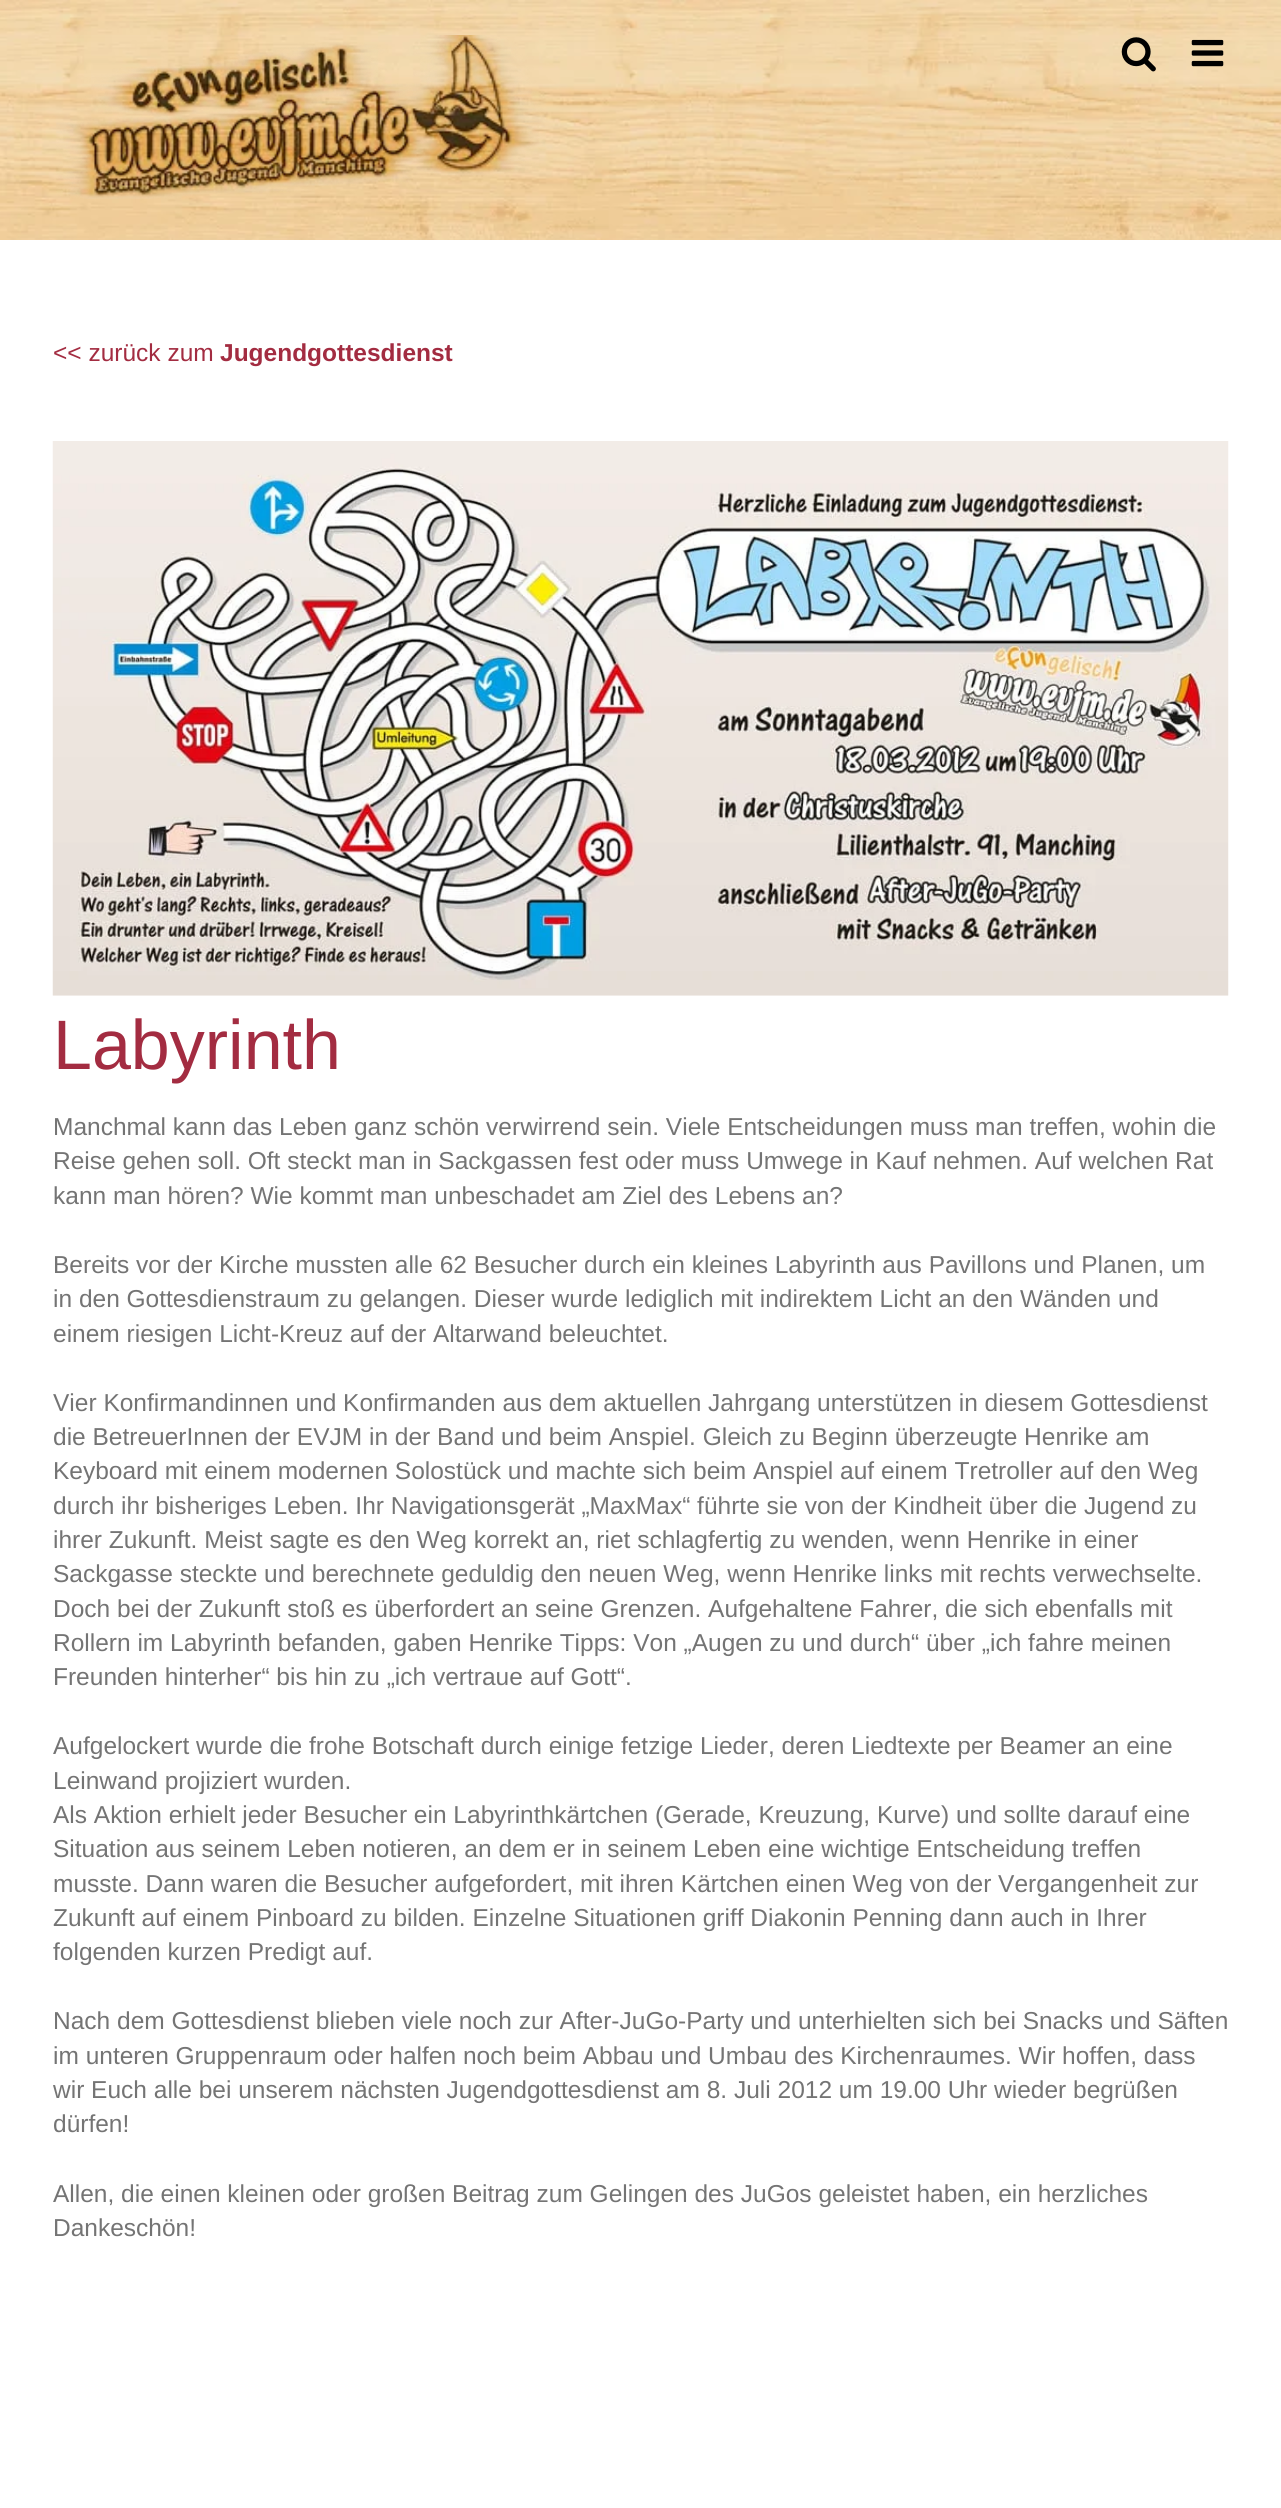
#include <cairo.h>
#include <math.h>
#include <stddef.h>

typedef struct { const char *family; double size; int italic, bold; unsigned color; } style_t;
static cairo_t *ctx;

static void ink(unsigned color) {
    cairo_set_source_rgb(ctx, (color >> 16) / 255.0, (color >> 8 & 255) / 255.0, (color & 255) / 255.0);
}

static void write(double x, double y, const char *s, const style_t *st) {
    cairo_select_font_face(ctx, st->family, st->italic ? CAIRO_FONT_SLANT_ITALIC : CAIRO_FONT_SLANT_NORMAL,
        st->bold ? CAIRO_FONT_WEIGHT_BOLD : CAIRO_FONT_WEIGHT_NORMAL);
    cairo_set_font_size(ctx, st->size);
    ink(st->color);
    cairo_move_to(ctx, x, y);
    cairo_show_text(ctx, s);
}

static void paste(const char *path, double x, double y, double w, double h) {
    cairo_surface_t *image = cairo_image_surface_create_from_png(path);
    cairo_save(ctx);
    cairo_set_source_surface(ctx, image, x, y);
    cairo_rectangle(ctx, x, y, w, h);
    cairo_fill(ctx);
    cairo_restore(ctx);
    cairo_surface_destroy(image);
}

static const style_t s1 = {"Liberation Sans", 24.5, 0, 0, 0xa32c41};
static const style_t s2 = {"Liberation Sans", 24.5, 0, 1, 0xa32c41};
static const style_t s3 = {"Liberation Sans", 70, 0, 0, 0xa32c41};
static const style_t s4 = {"Liberation Sans", 24.5, 0, 0, 0x747474};

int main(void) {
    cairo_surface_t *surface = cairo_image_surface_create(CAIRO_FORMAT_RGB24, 1281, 2508);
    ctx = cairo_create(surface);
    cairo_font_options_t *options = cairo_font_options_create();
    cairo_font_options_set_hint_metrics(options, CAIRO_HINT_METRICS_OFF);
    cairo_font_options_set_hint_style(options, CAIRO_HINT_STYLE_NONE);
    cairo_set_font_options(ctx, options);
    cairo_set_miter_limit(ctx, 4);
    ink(0xffffff);
    cairo_paint(ctx);
    paste("pic1.png", 0, 239, 1281, 1);
    paste("pic2.png", 0, 0, 1281, 240);
    paste("pic3.png", 56, 35, 489, 164);
    paste("pic4.png", 1121, 37, 35, 35);
    paste("pic5.png", 1191, 39, 33, 28);
    write(53, 361, "<< zurück zum", &s1);
    write(220, 361, "Jugendgottesdienst", &s2);
    paste("pic6.png", 52, 441, 1177, 555);
    write(53, 1069, "Labyrinth", &s3);
    write(53, 1135, "Manchmal kann das Leben ganz schön verwirrend sein. Viele Entscheidungen muss man treffen, wohin die", &s4);
    write(53, 1169, "Reise gehen soll. Oft steckt man in Sackgassen fest oder muss Umwege in Kauf nehmen. Auf welchen Rat", &s4);
    write(53, 1204, "kann man hören? Wie kommt man unbeschadet am Ziel des Lebens an?", &s4);
    write(53, 1273, "Bereits vor der Kirche mussten alle 62 Besucher durch ein kleines Labyrinth aus Pavillons und Planen, um", &s4);
    write(53, 1307, "in den Gottesdienstraum zu gelangen. Dieser wurde lediglich mit indirektem Licht an den Wänden und", &s4);
    write(53, 1342, "einem riesigen Licht-Kreuz auf der Altarwand beleuchtet.", &s4);
    write(53, 1411, "Vier Konfirmandinnen und Konfirmanden aus dem aktuellen Jahrgang unterstützen in diesem Gottesdienst", &s4);
    write(53, 1445, "die BetreuerInnen der EVJM in der Band und beim Anspiel. Gleich zu Beginn überzeugte Henrike am", &s4);
    write(53, 1479, "Keyboard mit einem modernen Solostück und machte sich beim Anspiel auf einem Tretroller auf den Weg", &s4);
    write(53, 1514, "durch ihr bisheriges Leben. Ihr Navigationsgerät „MaxMax“ führte sie von der Kindheit über die Jugend zu", &s4);
    write(53, 1548, "ihrer Zukunft. Meist sagte es den Weg korrekt an, riet schlagfertig zu wenden, wenn Henrike in einer", &s4);
    write(53, 1582, "Sackgasse steckte und berechnete geduldig den neuen Weg, wenn Henrike links mit rechts verwechselte.", &s4);
    write(53, 1617, "Doch bei der Zukunft stoß es überfordert an seine Grenzen. Aufgehaltene Fahrer, die sich ebenfalls mit", &s4);
    write(53, 1651, "Rollern im Labyrinth befanden, gaben Henrike Tipps: Von „Augen zu und durch“ über „ich fahre meinen", &s4);
    write(53, 1685, "Freunden hinterher“ bis hin zu „ich vertraue auf Gott“.", &s4);
    write(53, 1754, "Aufgelockert wurde die frohe Botschaft durch einige fetzige Lieder, deren Liedtexte per Beamer an eine", &s4);
    write(53, 1789, "Leinwand projiziert wurden.", &s4);
    write(53, 1823, "Als Aktion erhielt jeder Besucher ein Labyrinthkärtchen (Gerade, Kreuzung, Kurve) und sollte darauf eine", &s4);
    write(53, 1857, "Situation aus seinem Leben notieren, an dem er in seinem Leben eine wichtige Entscheidung treffen", &s4);
    write(53, 1892, "musste. Dann waren die Besucher aufgefordert, mit ihren Kärtchen einen Weg von der Vergangenheit zur", &s4);
    write(53, 1926, "Zukunft auf einem Pinboard zu bilden. Einzelne Situationen griff Diakonin Penning dann auch in Ihrer", &s4);
    write(53, 1960, "folgenden kurzen Predigt auf.", &s4);
    write(53, 2029, "Nach dem Gottesdienst blieben viele noch zur After-JuGo-Party und unterhielten sich bei Snacks und Säften", &s4);
    write(53, 2064, "im unteren Gruppenraum oder halfen noch beim Abbau und Umbau des Kirchenraumes. Wir hoffen, dass", &s4);
    write(53, 2098, "wir Euch alle bei unserem nächsten Jugendgottesdienst am 8. Juli 2012 um 19.00 Uhr wieder begrüßen", &s4);
    write(53, 2132, "dürfen!", &s4);
    write(53, 2202, "Allen, die einen kleinen oder großen Beitrag zum Gelingen des JuGos geleistet haben, ein herzliches", &s4);
    write(53, 2236, "Dankeschön!", &s4);
    cairo_surface_write_to_png(surface, "screenshot.png");
    cairo_font_options_destroy(options);
    cairo_destroy(ctx);
    cairo_surface_destroy(surface);
    return 0;
}
